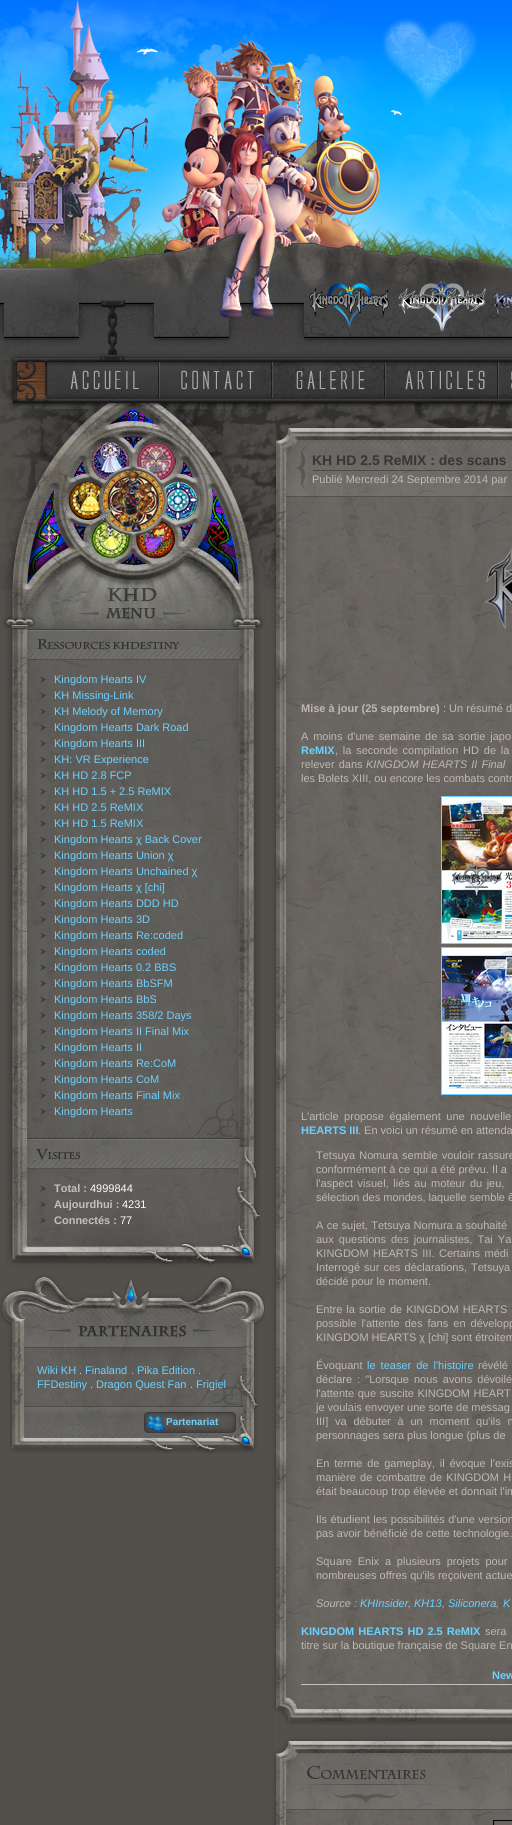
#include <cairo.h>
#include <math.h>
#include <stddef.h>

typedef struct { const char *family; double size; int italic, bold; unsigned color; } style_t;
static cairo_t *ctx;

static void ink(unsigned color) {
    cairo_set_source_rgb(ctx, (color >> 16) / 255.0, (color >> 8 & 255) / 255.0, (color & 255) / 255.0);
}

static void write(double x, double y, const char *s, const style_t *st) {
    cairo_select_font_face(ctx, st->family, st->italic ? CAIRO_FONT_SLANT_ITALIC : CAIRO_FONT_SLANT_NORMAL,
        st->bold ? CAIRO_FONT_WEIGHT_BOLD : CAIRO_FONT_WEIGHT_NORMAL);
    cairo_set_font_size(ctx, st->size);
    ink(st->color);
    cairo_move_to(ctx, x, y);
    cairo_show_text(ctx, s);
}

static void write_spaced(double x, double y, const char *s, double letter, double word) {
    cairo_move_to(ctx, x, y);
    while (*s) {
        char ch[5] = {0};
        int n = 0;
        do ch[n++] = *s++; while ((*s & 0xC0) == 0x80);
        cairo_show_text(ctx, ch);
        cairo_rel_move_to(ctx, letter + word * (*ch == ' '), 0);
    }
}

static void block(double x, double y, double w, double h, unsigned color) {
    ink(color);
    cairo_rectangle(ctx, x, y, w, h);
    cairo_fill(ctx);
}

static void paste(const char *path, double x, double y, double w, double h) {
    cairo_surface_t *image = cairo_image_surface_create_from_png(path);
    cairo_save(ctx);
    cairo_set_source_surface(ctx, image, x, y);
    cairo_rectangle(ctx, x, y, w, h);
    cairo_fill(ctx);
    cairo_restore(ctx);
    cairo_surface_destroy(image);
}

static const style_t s1 = {"Liberation Sans", 11, 0, 0, 0x6dd0fe};
static const style_t s2 = {"Liberation Sans", 11, 0, 1, 0xc4c1bb};
static const style_t s3 = {"Liberation Sans", 11, 0, 0, 0xfefefe};
static const style_t s4 = {"Liberation Sans", 11, 0, 0, 0xc4c1bb};
static const style_t s5 = {"Liberation Sans", 10, 0, 1, 0x6dd0fe};
static const style_t s6 = {"Liberation Sans", 14, 0, 1, 0x373636};
static const style_t s7 = {"Liberation Sans", 11, 0, 0, 0xbeb9ae};
static const style_t s8 = {"Liberation Sans", 11, 0, 1, 0xbeb9ae};
static const style_t s9 = {"Liberation Sans", 11, 0, 1, 0x6dd0fe};
static const style_t s10 = {"Liberation Sans", 11, 1, 0, 0xbeb9ae};
static const style_t s11 = {"Liberation Sans", 11, 1, 0, 0x6dd0fe};

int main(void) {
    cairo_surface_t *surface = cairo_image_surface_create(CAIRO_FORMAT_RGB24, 512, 1825);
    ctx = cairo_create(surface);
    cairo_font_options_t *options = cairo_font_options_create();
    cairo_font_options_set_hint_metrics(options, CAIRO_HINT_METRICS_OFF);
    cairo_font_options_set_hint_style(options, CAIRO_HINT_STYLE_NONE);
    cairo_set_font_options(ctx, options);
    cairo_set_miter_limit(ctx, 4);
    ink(0x53504c);
    cairo_paint(ctx);
    paste("pic1.png", 0, 0, 512, 630);
    paste("pic2.png", 309, 280, 203, 52);
    paste("pic3.png", 46, 362, 466, 36);
    paste("pic4.png", 6, 630, 255, 643);
    paste("pic5.png", 6, 1147, 254, 126);
    paste("pic6.png", 27, 1090, 212, 49);
    paste("pic7.png", 27, 630, 212, 30);
    paste("pic8.png", 40, 676, 7, 7);
    write(54, 683, "Kingdom Hearts IV", &s1);
    paste("pic9.png", 40, 692, 7, 7);
    write(54, 699, "KH Missing-Link", &s1);
    paste("pic10.png", 40, 708, 7, 7);
    write(54, 715, "KH Melody of Memory", &s1);
    paste("pic11.png", 40, 724, 7, 7);
    write(54, 731, "Kingdom Hearts Dark Road", &s1);
    paste("pic12.png", 40, 740, 7, 7);
    write(54, 747, "Kingdom Hearts III", &s1);
    paste("pic13.png", 40, 756, 7, 7);
    write(54, 763, "KH: VR Experience", &s1);
    paste("pic14.png", 40, 772, 6, 7);
    write(54, 779, "KH HD 2.8 FCP", &s1);
    paste("pic15.png", 40, 788, 7, 7);
    write(54, 795, "KH HD 1.5 + 2.5 ReMIX", &s1);
    paste("pic16.png", 40, 804, 6, 7);
    write(54, 811, "KH HD 2.5 ReMIX", &s1);
    paste("pic17.png", 40, 820, 6, 7);
    write(54, 827, "KH HD 1.5 ReMIX", &s1);
    paste("pic18.png", 40, 836, 7, 7);
    write(54, 843, "Kingdom Hearts χ Back Cover", &s1);
    paste("pic19.png", 40, 852, 7, 7);
    write(54, 859, "Kingdom Hearts Union χ", &s1);
    paste("pic20.png", 40, 868, 7, 7);
    write(54, 875, "Kingdom Hearts Unchained χ", &s1);
    paste("pic21.png", 40, 884, 7, 7);
    write(54, 891, "Kingdom Hearts χ [chi]", &s1);
    paste("pic22.png", 40, 900, 6, 7);
    write(54, 907, "Kingdom Hearts DDD HD", &s1);
    paste("pic23.png", 40, 916, 6, 6);
    write(54, 923, "Kingdom Hearts 3D", &s1);
    paste("pic24.png", 40, 932, 7, 7);
    write(54, 939, "Kingdom Hearts Re:coded", &s1);
    paste("pic25.png", 40, 948, 7, 7);
    write(54, 955, "Kingdom Hearts coded", &s1);
    paste("pic26.png", 40, 964, 6, 7);
    write(54, 971, "Kingdom Hearts 0.2 BBS", &s1);
    paste("pic27.png", 40, 980, 7, 7);
    write(54, 987, "Kingdom Hearts BbSFM", &s1);
    paste("pic28.png", 40, 996, 6, 7);
    write(54, 1003, "Kingdom Hearts BbS", &s1);
    paste("pic29.png", 40, 1012, 6, 7);
    write(54, 1019, "Kingdom Hearts 358/2 Days", &s1);
    paste("pic30.png", 40, 1028, 7, 7);
    write(54, 1035, "Kingdom Hearts II Final Mix", &s1);
    paste("pic31.png", 40, 1044, 7, 7);
    write(54, 1051, "Kingdom Hearts II", &s1);
    paste("pic32.png", 40, 1060, 7, 7);
    write(54, 1067, "Kingdom Hearts Re:CoM", &s1);
    paste("pic33.png", 40, 1076, 7, 7);
    write(54, 1083, "Kingdom Hearts CoM", &s1);
    paste("pic34.png", 40, 1093, 7, 6);
    write(54, 1099, "Kingdom Hearts Final Mix", &s1);
    paste("pic35.png", 40, 1108, 6, 7);
    write(54, 1115, "Kingdom Hearts", &s1);
    paste("pic36.png", 27, 1139, 212, 30);
    paste("pic37.png", 40, 1185, 7, 7);
    write(54, 1192, "Total :", &s2);
    write(90, 1192, "4999844", &s3);
    paste("pic38.png", 40, 1201, 7, 7);
    write(54, 1208, "Aujourdhui :", &s2);
    write(122, 1208, "4231", &s3);
    paste("pic39.png", 40, 1217, 6, 7);
    write(54, 1224, "Connectés :", &s2);
    write(120, 1224, "77", &s3);
    paste("pic40.png", 9, 1373, 250, 87);
    paste("pic41.png", 0, 1273, 265, 100);
    write(37, 1374, "Wiki KH", &s1);
    write(79, 1374, ".", &s4);
    write(85, 1374, "Finaland", &s1);
    write(131, 1374, ".", &s4);
    write(137, 1374, "Pika Edition", &s1);
    write(198, 1374, ".", &s4);
    write(37, 1388, "FFDestiny", &s1);
    write(90, 1388, ".", &s4);
    write(96, 1388, "Dragon Quest Fan", &s1);
    write(190, 1388, ".", &s4);
    write(196, 1388, "Frigiel", &s1);
    write(166, 1425, "Partenariat", &s5);
    paste("pic42.png", 266, 597, 246, 1228);
    paste("pic43.png", 266, 417, 246, 180);
    write(312, 465, "KH HD 2.5 ReMIX : des scans", &s6);
    write(312, 483, "Publié Mercredi 24 Septembre 2014 par", &s7);
    paste("pic44.png", 483, 548, 29, 81);
    write(301, 712, "Mise à jour (25 septembre)", &s8);
    write(443, 712, ": Un résumé d", &s7);
    write_spaced(301, 740, "A moins d'une semaine de sa sortie japo", 0, 1.75);
    write(301, 754, "ReMIX", &s9);
    cairo_select_font_face(ctx, "Liberation Sans", CAIRO_FONT_SLANT_NORMAL, CAIRO_FONT_WEIGHT_NORMAL);
    ink(0xbeb9ae);
    write_spaced(335, 754, ", la seconde compilation HD de la", 0, 1.75);
    write_spaced(301, 768, "relever dans", 0, 1);
    cairo_select_font_face(ctx, "Liberation Sans", CAIRO_FONT_SLANT_ITALIC, CAIRO_FONT_WEIGHT_NORMAL);
    write_spaced(366, 768, "KINGDOM HEARTS II Final", 0, 1);
    write(301, 782, "les Bolets XIII, ou encore les combats contr", &s7);
    cairo_rectangle(ctx, 441.5, 796.5, 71, 147);
    ink(0x6dd0fe);
    cairo_set_line_width(ctx, 1);
    cairo_stroke(ctx);
    paste("pic45.png", 442, 797, 70, 146);
    cairo_rectangle(ctx, 441.5, 947.5, 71, 147);
    cairo_stroke(ctx);
    paste("pic46.png", 442, 948, 70, 146);
    ink(0xbeb9ae);
    write_spaced(301, 1120, "L'article propose également une nouvelle", 0, 2.5);
    write(301, 1134, "HEARTS III", &s9);
    write(358, 1134, ". En voici un résumé en attenda", &s7);
    write_spaced(316, 1159, "Tetsuya No", 0, 1);
    write_spaced(373, 1159, "mura semble vouloir rassure", 0, 1);
    write(316, 1173, "conformément à ce qui a été prévu. Il a", &s7);
    write_spaced(316, 1187, "l'aspect visuel, liés au moteur du jeu,", 0, 1.5);
    write(316, 1201, "sélection des mondes, laquelle semble ê", &s7);
    write_spaced(316, 1229, "A ce sujet, Tetsuya Nomura a souhaité", 0, 0.25);
    write_spaced(316, 1243, "aux questions des journalistes, Tai Ya", 0, 2);
    write_spaced(316, 1257, "KINGDOM HEARTS III. Certains médi", 0, 1.5);
    write_spaced(316, 1271, "Interrogé sur ces déclarations, Tetsuya", 0, 1);
    write(316, 1285, "décidé pour le moment.", &s7);
    write_spaced(316, 1313, "Entre la sortie de KINGDOM HEARTS", 0, 1);
    write_spaced(316, 1327, "possible l'attente des fans en développ", 0, 2);
    write(316, 1341, "KINGDOM HEARTS χ [chi] sont étroitem", &s7);
    write(316, 1369, "Évoquant", &s7);
    ink(0x6dd0fe);
    write_spaced(367, 1369, "le teaser de l'histoire", 0, 2);
    ink(0xbeb9ae);
    write_spaced(478, 1369, "révélé", 0, 2);
    write_spaced(316, 1383, "déclare : \"Lorsque nous avons dévoilé", 0, 2);
    write_spaced(316, 1397, "l'attente que suscite KINGDOM HEART", 0, 0.5);
    write(316, 1411, "je voulais envoyer une sorte de messag", &s7);
    write_spaced(316, 1425, "III] va débuter à un moment qu'ils n", 0, 3.75);
    write(316, 1439, "personnages sera plus longue (plus de", &s7);
    write_spaced(316, 1467, "En terme de gameplay, il évoque l'exis", 0, 1.75);
    write_spaced(316, 1481, "manière de combattre de KINGDOM H", 0, 1.25);
    write(316, 1495, "était beaucoup trop élevée et donnait l'im", &s7);
    write_spaced(316, 1523, "Ils étudient les possibilités d'une version", 0, 0.5);
    write(316, 1537, "pas avoir bénéficié de cette technologie.", &s7);
    write(316, 1565, "Squ", &s7);
    write_spaced(336, 1565, "are Enix a plusieurs projets pour", 0, 2.75);
    write(316, 1579, "nombreuses offres qu'ils reçoivent actue", &s7);
    write(316, 1607, "Source :", &s10);
    write(360, 1607, "KHInsider", &s11);
    write(408, 1607, ",", &s10);
    write(414, 1607, "KH13", &s11);
    write(442, 1607, ",", &s10);
    write(448, 1607, "Siliconera", &s11);
    write(496, 1607, ",", &s10);
    write(503, 1607, "K", &s11);
    cairo_select_font_face(ctx, "Liberation Sans", CAIRO_FONT_SLANT_NORMAL, CAIRO_FONT_WEIGHT_BOLD);
    write_spaced(301, 1635, "KINGDOM HEARTS HD 2.5 ReMIX", 0, 1);
    cairo_select_font_face(ctx, "Liberation Sans", CAIRO_FONT_SLANT_NORMAL, CAIRO_FONT_WEIGHT_NORMAL);
    ink(0xbeb9ae);
    write_spaced(485, 1635, "sera", 0, 1);
    write(301, 1649, "titre sur la boutique française de Square En", &s7);
    block(301, 1684, 211, 1, 0xc4c1bb);
    write(492, 1679, "New", &s9);
    paste("pic47.png", 273, 1696, 239, 114);
    cairo_rectangle(ctx, 493.5, 1820.5, 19, 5);
    ink(0x000000);
    cairo_stroke(ctx);
    cairo_surface_write_to_png(surface, "screenshot.png");
    cairo_font_options_destroy(options);
    cairo_destroy(ctx);
    cairo_surface_destroy(surface);
    return 0;
}
